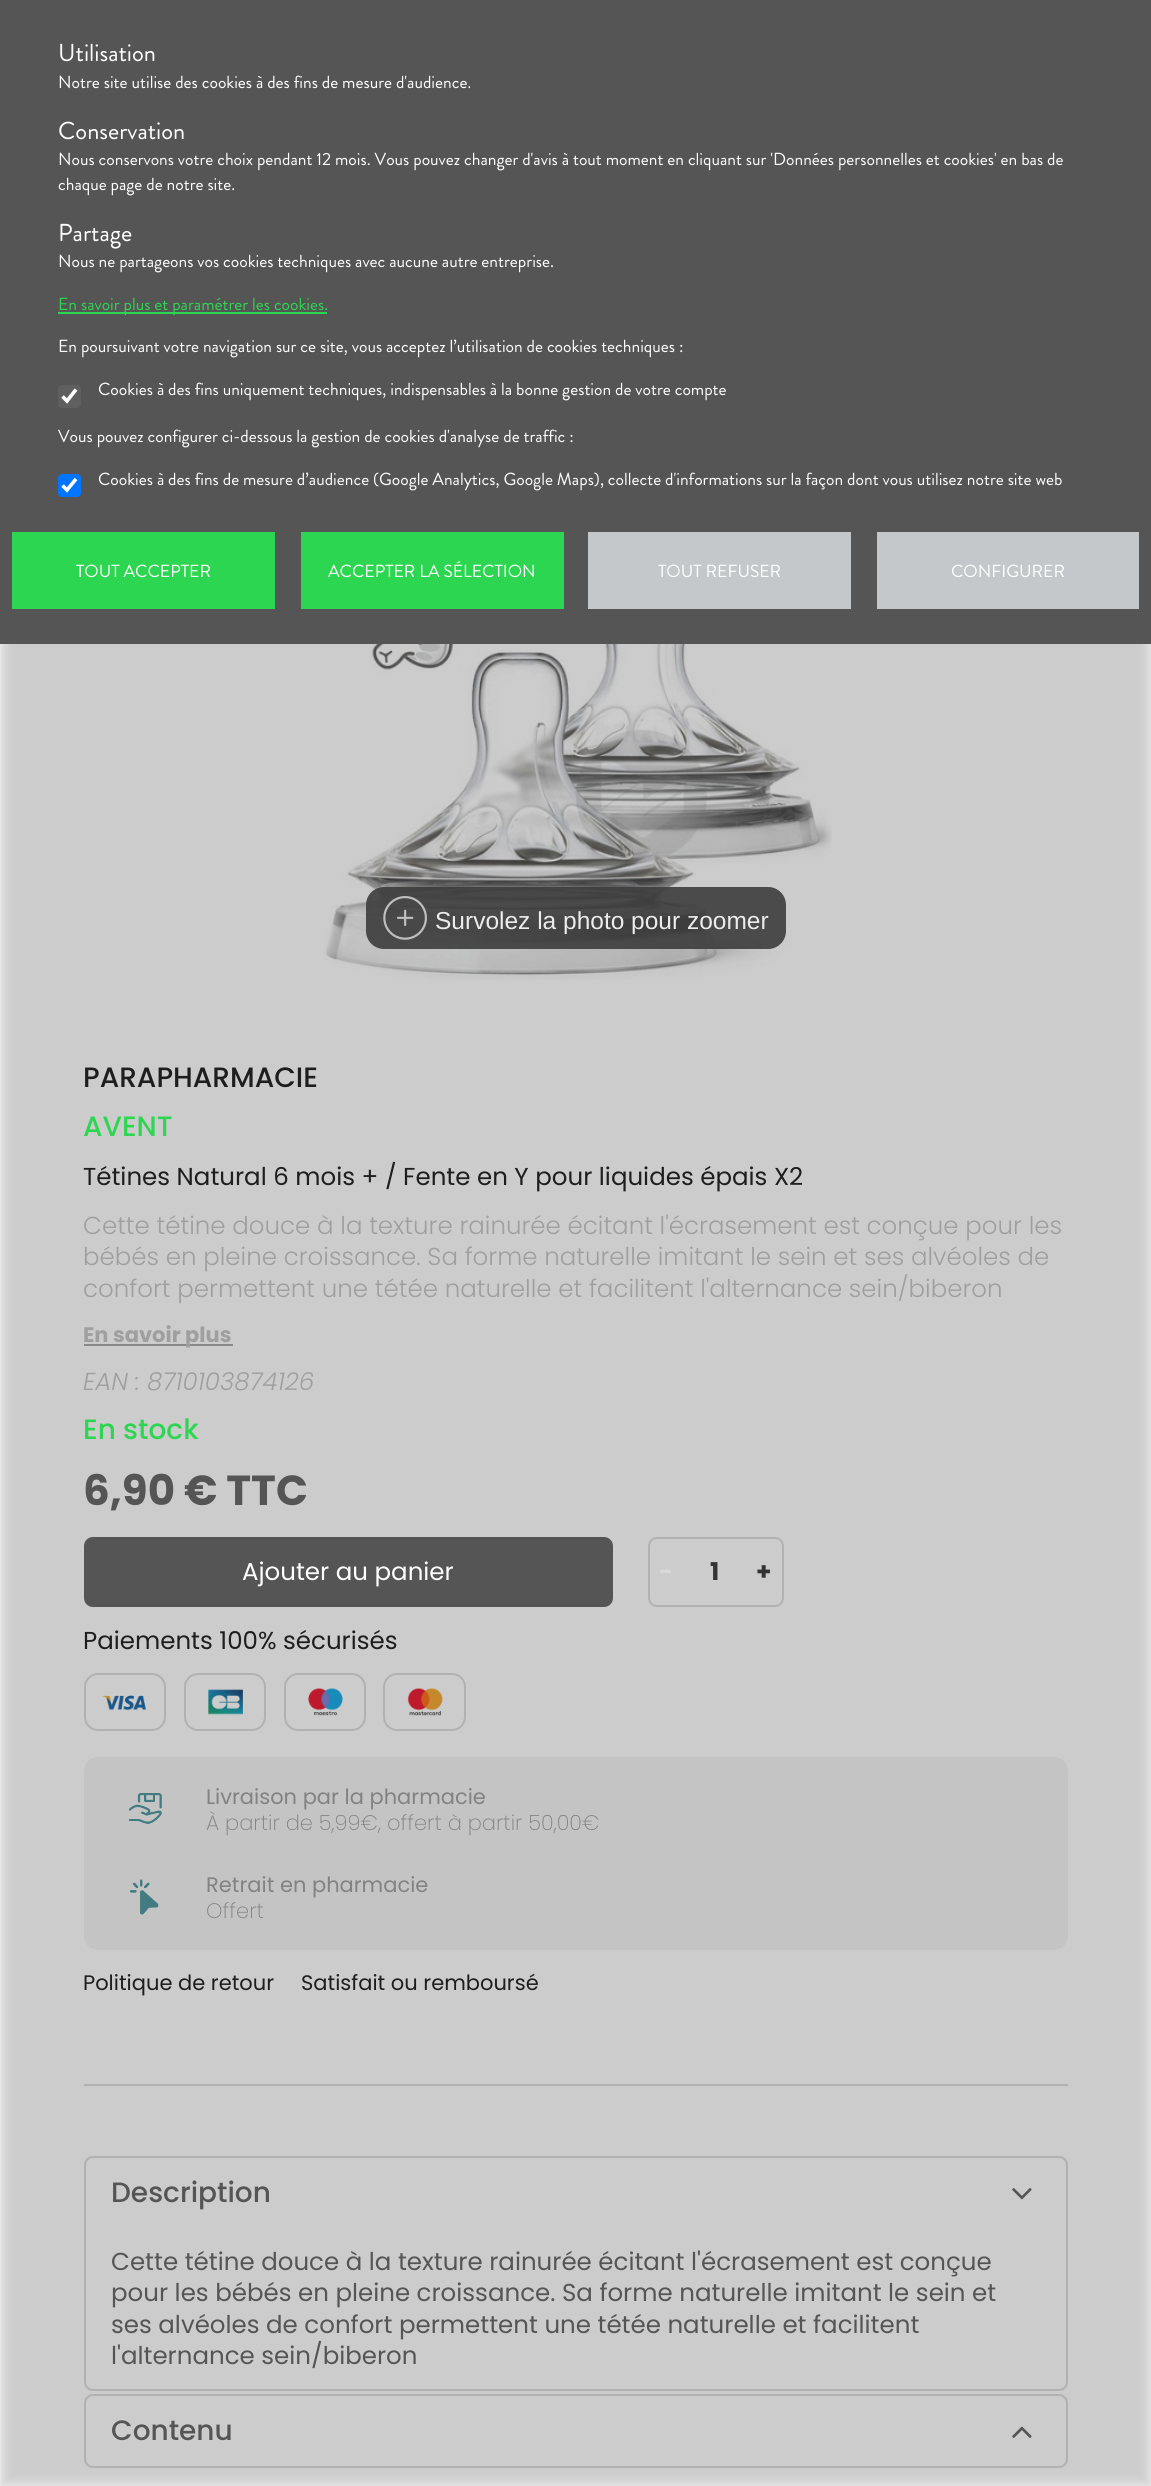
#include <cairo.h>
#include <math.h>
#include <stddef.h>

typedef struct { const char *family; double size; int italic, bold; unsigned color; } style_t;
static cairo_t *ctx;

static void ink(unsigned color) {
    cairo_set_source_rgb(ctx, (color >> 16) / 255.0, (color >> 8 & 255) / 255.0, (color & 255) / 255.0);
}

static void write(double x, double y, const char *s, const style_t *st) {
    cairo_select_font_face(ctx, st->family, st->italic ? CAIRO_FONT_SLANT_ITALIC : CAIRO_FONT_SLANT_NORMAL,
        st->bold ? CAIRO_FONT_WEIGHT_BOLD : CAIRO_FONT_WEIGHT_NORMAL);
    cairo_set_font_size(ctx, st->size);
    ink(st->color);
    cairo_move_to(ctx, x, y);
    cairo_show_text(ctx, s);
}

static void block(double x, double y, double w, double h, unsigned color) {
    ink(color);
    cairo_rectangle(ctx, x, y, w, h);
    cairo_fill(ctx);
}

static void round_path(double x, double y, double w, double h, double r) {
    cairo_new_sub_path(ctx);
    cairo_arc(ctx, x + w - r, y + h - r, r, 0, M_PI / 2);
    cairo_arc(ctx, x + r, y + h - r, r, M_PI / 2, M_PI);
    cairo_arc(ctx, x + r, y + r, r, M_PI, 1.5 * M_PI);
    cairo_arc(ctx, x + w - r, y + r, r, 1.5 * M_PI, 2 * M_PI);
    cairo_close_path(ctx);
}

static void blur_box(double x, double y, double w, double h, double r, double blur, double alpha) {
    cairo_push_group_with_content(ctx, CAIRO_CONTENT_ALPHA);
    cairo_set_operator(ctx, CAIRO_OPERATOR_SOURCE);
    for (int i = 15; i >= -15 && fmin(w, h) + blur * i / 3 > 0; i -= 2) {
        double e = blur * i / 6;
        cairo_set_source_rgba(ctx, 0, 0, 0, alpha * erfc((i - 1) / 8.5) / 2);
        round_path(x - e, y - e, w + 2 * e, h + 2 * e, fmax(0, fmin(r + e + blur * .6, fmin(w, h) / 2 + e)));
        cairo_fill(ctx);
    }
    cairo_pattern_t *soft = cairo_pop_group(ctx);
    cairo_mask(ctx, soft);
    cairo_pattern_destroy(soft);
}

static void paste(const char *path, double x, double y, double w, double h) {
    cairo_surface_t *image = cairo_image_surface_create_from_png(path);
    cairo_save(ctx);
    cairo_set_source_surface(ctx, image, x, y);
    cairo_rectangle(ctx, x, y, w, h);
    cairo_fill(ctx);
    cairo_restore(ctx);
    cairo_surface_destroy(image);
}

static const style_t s1 = {"Brandon Grotesque", 24.5, 0, 0, 0xffffff};
static const style_t s2 = {"Brandon Grotesque", 17.5, 0, 0, 0xffffff};
static const style_t s3 = {"Brandon Grotesque", 17.5, 0, 0, 0x2dd650};
static const style_t s4 = {"Liberation Sans", 24.5, 0, 0, 0xececec};
static const style_t s5 = {"Poppins Medium", 28, 0, 0, 0x1e1e1e};
static const style_t s6 = {"Poppins Medium", 28, 0, 0, 0x2dd650};
static const style_t s7 = {"Poppins", 24.5, 0, 0, 0x1e1e1e};
static const style_t s8 = {"Poppins Light", 24.5, 0, 0, 0x9f9f9f};
static const style_t s9 = {"Poppins", 21, 0, 1, 0x9f9f9f};
static const style_t s10 = {"Poppins Light", 24.5, 1, 0, 0x9f9f9f};
static const style_t s11 = {"Poppins", 42, 0, 1, 0x555555};
static const style_t s12 = {"Poppins", 24.5, 0, 0, 0xffffff};
static const style_t s13 = {"Poppins", 24.5, 0, 1, 0xd9d9d9};
static const style_t s14 = {"Poppins", 24.5, 0, 1, 0x333333};
static const style_t s15 = {"Poppins", 21, 0, 0, 0x828282};
static const style_t s16 = {"Poppins ExtraLight", 21, 0, 0, 0x828282};
static const style_t s17 = {"Poppins", 21, 0, 0, 0x1e1e1e};
static const style_t s18 = {"Poppins Medium", 28, 0, 0, 0x555555};
static const style_t s19 = {"Poppins", 24.5, 0, 0, 0x555555};

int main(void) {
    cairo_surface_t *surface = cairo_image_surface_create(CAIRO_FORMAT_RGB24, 1151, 2486);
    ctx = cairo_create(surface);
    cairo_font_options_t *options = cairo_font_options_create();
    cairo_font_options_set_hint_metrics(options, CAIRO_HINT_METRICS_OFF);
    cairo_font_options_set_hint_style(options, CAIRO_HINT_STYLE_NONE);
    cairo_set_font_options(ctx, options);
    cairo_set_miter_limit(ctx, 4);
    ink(0xffffff);
    cairo_paint(ctx);
    paste("pic1.png", 323, 644, 509, 336);
    cairo_set_source_rgba(ctx, 0.2, 0.2, 0.2, 0.9);
    round_path(366, 887, 420, 62, 18);
    cairo_fill(ctx);
    paste("pic2.png", 383, 896, 44, 44);
    block(84, 1344, 149, 2, 0x9f9f9f);
    ink(0x555555);
    round_path(86, 1539, 525, 66, 7);
    cairo_fill_preserve(ctx);
    cairo_set_line_width(ctx, 4);
    cairo_stroke(ctx);
    round_path(649, 1538, 134, 68, 8);
    ink(0xd9d9d9);
    cairo_set_line_width(ctx, 2);
    cairo_stroke(ctx);
    round_path(85, 1674, 80, 56, 13);
    cairo_stroke(ctx);
    paste("pic3.png", 102, 1695, 44, 16);
    round_path(185, 1674, 80, 56, 13);
    cairo_stroke(ctx);
    paste("pic4.png", 208, 1689, 35, 26);
    round_path(285, 1674, 80, 56, 13);
    cairo_stroke(ctx);
    paste("pic5.png", 308, 1688, 35, 28);
    round_path(384, 1674, 81, 56, 13);
    cairo_stroke(ctx);
    paste("pic6.png", 407, 1688, 36, 28);
    ink(0xf4f4f4);
    round_path(84, 1757, 984, 193, 14);
    cairo_fill(ctx);
    paste("pic7.png", 129, 1793, 33, 31);
    paste("pic8.png", 130, 1879, 29, 36);
    block(84, 2084, 984, 2, 0xd9d9d9);
    round_path(85, 2157, 982, 233, 8);
    cairo_stroke(ctx);
    paste("pic9.png", 1012, 2188, 20, 12);
    round_path(85, 2395, 982, 72, 8);
    cairo_stroke(ctx);
    paste("pic10.png", 1012, 2426, 20, 12);
    ink(0x555555);
    blur_box(0, 0, 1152, 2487, 0, 7, 0.3);
    block(0, 0, 1151, 644, 0x555555);
    write(58, 61, "Utilisation", &s1);
    write(58, 88, "Notre site utilise des cookies à des fins de mesure d'audience.", &s2);
    write(58, 139, "Conservation", &s1);
    write(58, 165, "Nous conservons votre choix pendant 12 mois. Vous pouvez changer d'avis à tout moment en cliquant sur 'Données personnelles et cookies' en bas de", &s2);
    write(58, 190, "chaque page de notre site.", &s2);
    write(58, 241, "Partage", &s1);
    write(58, 267, "Nous ne partageons vos cookies techniques avec aucune autre entreprise.", &s2);
    block(58, 312, 269, 2, 0x2dd650);
    write(58, 310, "En savoir plus et paramétrer les cookies.", &s3);
    write(58, 352, "En poursuivant votre navigation sur ce site, vous acceptez l’utilisation de cookies techniques :", &s2);
    ink(0x5f5f5f);
    round_path(58, 385, 23, 23, 4);
    cairo_fill(ctx);
    cairo_new_path(ctx);
    cairo_move_to(ctx, 62.5, 396.5);
    cairo_line_to(ctx, 67, 401);
    cairo_line_to(ctx, 76, 389.5);
    ink(0xffffff);
    cairo_set_line_width(ctx, 3.6);
    cairo_stroke(ctx);
    write(98, 395, "Cookies à des fins uniquement techniques, indispensables à la bonne gestion de votre compte", &s2);
    write(58, 442, "Vous pouvez configurer ci-dessous la gestion de cookies d'analyse de traffic :", &s2);
    ink(0x0075ff);
    round_path(58, 474, 23, 23, 4);
    cairo_fill(ctx);
    cairo_new_path(ctx);
    cairo_move_to(ctx, 62.5, 485.5);
    cairo_line_to(ctx, 67, 490);
    cairo_line_to(ctx, 76, 479);
    ink(0xffffff);
    cairo_stroke(ctx);
    write(98, 485, "Cookies à des fins de mesure d’audience (Google Analytics, Google Maps), collecte d'informations sur la façon dont vous utilisez notre site web", &s2);
    block(12, 532, 263, 77, 0x2dd650);
    write(76, 577, "TOUT ACCEPTER", &s2);
    block(301, 532, 263, 77, 0x2dd650);
    write(328, 577, "ACCEPTER LA SÉLECTION", &s2);
    block(588, 532, 263, 77, 0xc4c8ca);
    write(658, 577, "TOUT REFUSER", &s2);
    block(877, 532, 262, 77, 0xc4c8ca);
    write(951, 577, "CONFIGURER", &s2);
    write(435, 929, "Survolez la photo pour zoomer", &s4);
    write(83, 1087, "PARAPHARMACIE", &s5);
    write(83, 1136, "AVENT", &s6);
    write(83, 1185, "Tétines Natural 6 mois + / Fente en Y pour liquides épais X2", &s7);
    write(83, 1234, "Cette tétine douce à la texture rainurée écitant l'écrasement est conçue pour les", &s8);
    write(83, 1265, "bébés en pleine croissance. Sa forme naturelle imitant le sein et ses alvéoles de", &s8);
    write(83, 1297, "confort permettent une tétée naturelle et facilitent l'alternance sein/biberon", &s8);
    write(83, 1342, "En savoir plus", &s9);
    write(83, 1390, "EAN : 8710103874126", &s10);
    write(83, 1439, "En stock", &s6);
    write(83, 1505, "6,90 € TTC", &s11);
    write(242, 1580, "Ajouter au panier", &s12);
    write(659, 1580, "-", &s13);
    write(710, 1580, "1", &s14);
    write(756, 1580, "+", &s14);
    write(83, 1649, "Paiements 100% sécurisés", &s7);
    write(206, 1804, "Livraison par la pharmacie", &s15);
    write(206, 1830, "À partir de 5,99€, offert à partir 50,00€", &s16);
    write(206, 1892, "Retrait en pharmacie", &s15);
    write(206, 1918, "Offert", &s16);
    write(83, 1990, "Politique de retour", &s17);
    write(301, 1990, "Satisfait ou remboursé", &s17);
    write(111, 2202, "Description", &s18);
    write(111, 2270, "Cette tétine douce à la texture rainurée écitant l'écrasement est conçue", &s19);
    write(111, 2301, "pour les bébés en pleine croissance. Sa forme naturelle imitant le sein et", &s19);
    write(111, 2333, "ses alvéoles de confort permettent une tétée naturelle et facilitent", &s19);
    write(111, 2364, "l'alternance sein/biberon", &s19);
    write(111, 2440, "Contenu", &s18);
    cairo_surface_write_to_png(surface, "screenshot.png");
    cairo_font_options_destroy(options);
    cairo_destroy(ctx);
    cairo_surface_destroy(surface);
    return 0;
}
